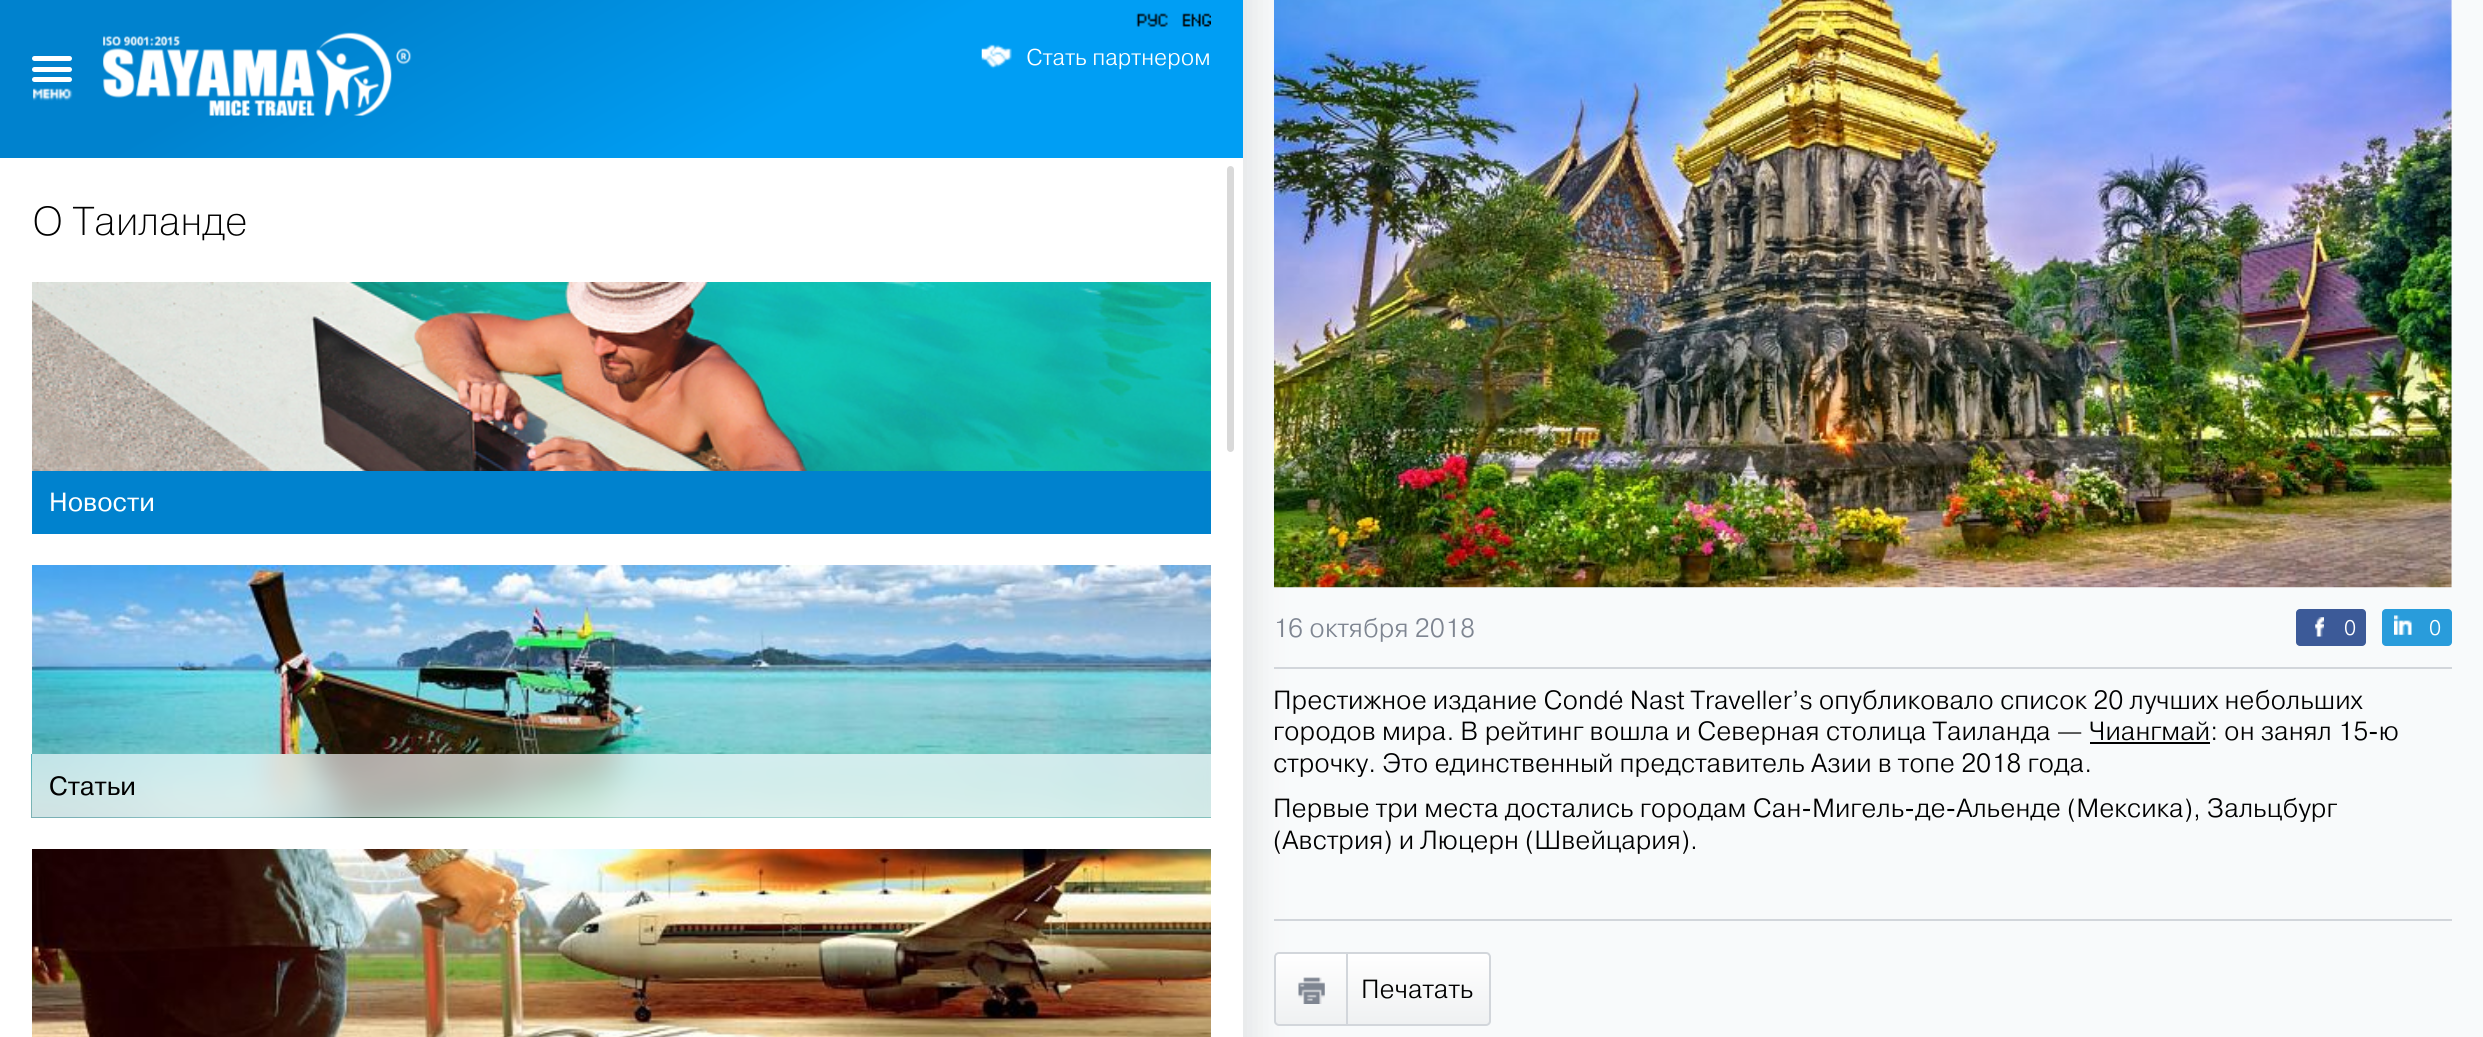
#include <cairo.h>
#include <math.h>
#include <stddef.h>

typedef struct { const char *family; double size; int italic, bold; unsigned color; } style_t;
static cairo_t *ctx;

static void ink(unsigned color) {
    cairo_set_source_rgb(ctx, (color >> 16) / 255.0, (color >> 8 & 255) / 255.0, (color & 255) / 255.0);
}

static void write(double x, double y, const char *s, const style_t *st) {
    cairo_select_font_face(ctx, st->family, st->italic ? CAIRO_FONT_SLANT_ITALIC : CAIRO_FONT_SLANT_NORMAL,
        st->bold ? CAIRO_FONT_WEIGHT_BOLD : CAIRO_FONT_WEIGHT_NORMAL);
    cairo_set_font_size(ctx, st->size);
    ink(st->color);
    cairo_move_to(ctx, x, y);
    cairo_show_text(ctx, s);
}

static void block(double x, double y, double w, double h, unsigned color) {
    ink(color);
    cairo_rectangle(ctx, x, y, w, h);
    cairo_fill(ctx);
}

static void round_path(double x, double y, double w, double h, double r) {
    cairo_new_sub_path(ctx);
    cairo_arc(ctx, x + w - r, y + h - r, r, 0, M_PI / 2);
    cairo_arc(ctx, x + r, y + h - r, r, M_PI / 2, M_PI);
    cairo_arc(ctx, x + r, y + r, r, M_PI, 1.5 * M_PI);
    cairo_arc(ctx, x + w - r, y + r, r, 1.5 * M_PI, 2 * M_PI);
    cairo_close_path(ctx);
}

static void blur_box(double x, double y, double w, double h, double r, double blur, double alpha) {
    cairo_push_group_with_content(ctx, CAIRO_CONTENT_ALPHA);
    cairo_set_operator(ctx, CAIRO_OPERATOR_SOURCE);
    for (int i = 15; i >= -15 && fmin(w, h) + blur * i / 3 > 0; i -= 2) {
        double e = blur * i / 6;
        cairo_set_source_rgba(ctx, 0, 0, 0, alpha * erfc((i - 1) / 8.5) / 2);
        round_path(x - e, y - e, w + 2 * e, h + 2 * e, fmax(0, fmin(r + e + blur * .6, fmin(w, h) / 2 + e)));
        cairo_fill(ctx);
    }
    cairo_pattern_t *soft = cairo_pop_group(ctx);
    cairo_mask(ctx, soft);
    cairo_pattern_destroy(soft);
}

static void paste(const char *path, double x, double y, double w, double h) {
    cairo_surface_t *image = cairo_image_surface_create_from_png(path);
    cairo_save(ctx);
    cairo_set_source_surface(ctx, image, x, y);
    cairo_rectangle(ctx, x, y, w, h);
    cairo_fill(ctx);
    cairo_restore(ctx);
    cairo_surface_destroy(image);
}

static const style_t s1 = {"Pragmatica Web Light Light", 22.75, 0, 0, 0xffffff};
static const style_t s2 = {"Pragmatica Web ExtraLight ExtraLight", 40.25, 0, 0, 0x000000};
static const style_t s3 = {"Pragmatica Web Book", 26.25, 0, 0, 0xffffff};
static const style_t s4 = {"Pragmatica Web Book", 26.25, 0, 0, 0x000000};
static const style_t s5 = {"Pragmatica Web Light Light", 26.25, 0, 0, 0x7e8591};
static const style_t s6 = {"Pragmatica Web Light Light", 21, 0, 0, 0xffffff};
static const style_t s7 = {"Pragmatica Web Light Light", 26.25, 0, 0, 0x000000};

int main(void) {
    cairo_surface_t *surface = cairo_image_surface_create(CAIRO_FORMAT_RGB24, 2483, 1037);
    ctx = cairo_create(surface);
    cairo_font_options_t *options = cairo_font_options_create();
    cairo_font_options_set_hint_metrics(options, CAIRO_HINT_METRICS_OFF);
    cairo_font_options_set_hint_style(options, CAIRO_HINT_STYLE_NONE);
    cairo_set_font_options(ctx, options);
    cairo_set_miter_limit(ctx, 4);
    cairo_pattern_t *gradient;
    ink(0xf8fafb);
    cairo_paint(ctx);
    ink(0xe4e6e7);
    blur_box(12, -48, 1243, 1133, 0, 16, 1);
    block(0, 158, 1243, 879, 0xffffff);
    gradient = cairo_pattern_create_linear(811, 407, 432, -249);
    cairo_pattern_add_color_stop_rgba(gradient, 0, 0, 0.62, 0.957, 1);
    cairo_pattern_add_color_stop_rgba(gradient, 0.35, 0, 0.62, 0.957, 1);
    cairo_pattern_add_color_stop_rgba(gradient, 0.75, 0, 0.51, 0.808, 1);
    cairo_pattern_add_color_stop_rgba(gradient, 1, 0, 0.51, 0.808, 1);
    cairo_set_source(ctx, gradient);
    cairo_pattern_destroy(gradient);
    cairo_rectangle(ctx, 0, 0, 1243, 158);
    cairo_fill(ctx);
    paste("pic1.png", 1136, 13, 32, 14);
    paste("pic2.png", 1182, 13, 29, 14);
    ink(0xffffff);
    round_path(32, 56, 40, 5, 2.5);
    cairo_fill(ctx);
    round_path(32, 67, 40, 5, 2.5);
    cairo_fill(ctx);
    round_path(32, 77, 40, 5, 2.5);
    cairo_fill(ctx);
    paste("pic3.png", 103, 32, 309, 84);
    paste("pic4.png", 981, 44, 31, 25);
    write(1026, 65, "Стать партнером", &s1);
    paste("pic5.png", 33, 88, 40, 13);
    write(32, 235, "О Таиланде", &s2);
    paste("pic6.png", 32, 282, 1179, 252);
    cairo_save(ctx);
    cairo_rectangle(ctx, 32, 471, 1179, 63);
    cairo_clip(ctx);
    ink(0x0082ce);
    blur_box(2, 408, 1237, 164, 0, 14, 1);
    cairo_restore(ctx);
    write(49, 511, "Новости", &s3);
    paste("pic7.png", 32, 565, 1179, 252);
    paste("pic8.png", 31, 754, 1180, 64);
    cairo_save(ctx);
    cairo_rectangle(ctx, 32, 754, 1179, 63);
    cairo_clip(ctx);
    ink(0xffffff);
    blur_box(-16, 691, 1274, 184, 0, 14, 0.65);
    cairo_restore(ctx);
    write(49, 795, "Статьи", &s4);
    paste("pic9.png", 32, 849, 1179, 188);
    ink(0xd9d9d9);
    round_path(1227, 166, 7, 286, 3.5);
    cairo_fill(ctx);
    paste("pic10.png", 1274, 0, 1178, 588);
    block(1274, 667, 1178, 2, 0xd2d6db);
    write(1273, 637, "16 октября 2018", &s5);
    ink(0x3c5a98);
    round_path(2296, 609, 70, 37, 4);
    cairo_fill(ctx);
    paste("pic11.png", 2315, 617, 9, 20);
    write(2344, 635, "0", &s6);
    ink(0x299cdb);
    round_path(2382, 609, 70, 37, 4);
    cairo_fill(ctx);
    paste("pic12.png", 2394, 615, 18, 20);
    write(2429, 635, "0", &s6);
    write(1273, 709, "Престижное издание Condé Nast Traveller’s опубликовало список 20 лучших небольших", &s7);
    write(1273, 740, "городов мира. В рейтинг вошла и Северная столица Таиланда — Чиангмай: он занял 15-ю", &s7);
    block(2090, 742, 120, 2, 0x000000);
    write(1273, 772, "строчку. Это единственный представитель Азии в топе 2018 года.", &s7);
    write(1273, 817, "Первые три места достались городам Сан-Мигель-де-Альенде (Мексика), Зальцбург", &s7);
    write(1273, 849, "(Австрия) и Люцерн (Швейцария).", &s7);
    block(1274, 919, 1178, 2, 0xd2d6db);
    cairo_save(ctx);
    round_path(1274, 952, 217, 74, 5);
    cairo_clip(ctx);
    gradient = cairo_pattern_create_linear(1383, 954, 1383, 1024);
    cairo_pattern_add_color_stop_rgba(gradient, 0, 1, 1, 1, 1);
    cairo_pattern_add_color_stop_rgba(gradient, 1, 0.937, 0.945, 0.949, 1);
    cairo_set_source(ctx, gradient);
    cairo_pattern_destroy(gradient);
    cairo_rectangle(ctx, 1274, 954, 217, 70);
    cairo_fill(ctx);
    cairo_restore(ctx);
    round_path(1275, 953, 215, 72, 4);
    cairo_stroke(ctx);
    paste("pic13.png", 1298, 977, 27, 27);
    block(1346, 954, 2, 70, 0xd2d6db);
    write(1361, 998, "Печатать", &s7);
    cairo_surface_write_to_png(surface, "screenshot.png");
    cairo_font_options_destroy(options);
    cairo_destroy(ctx);
    cairo_surface_destroy(surface);
    return 0;
}
